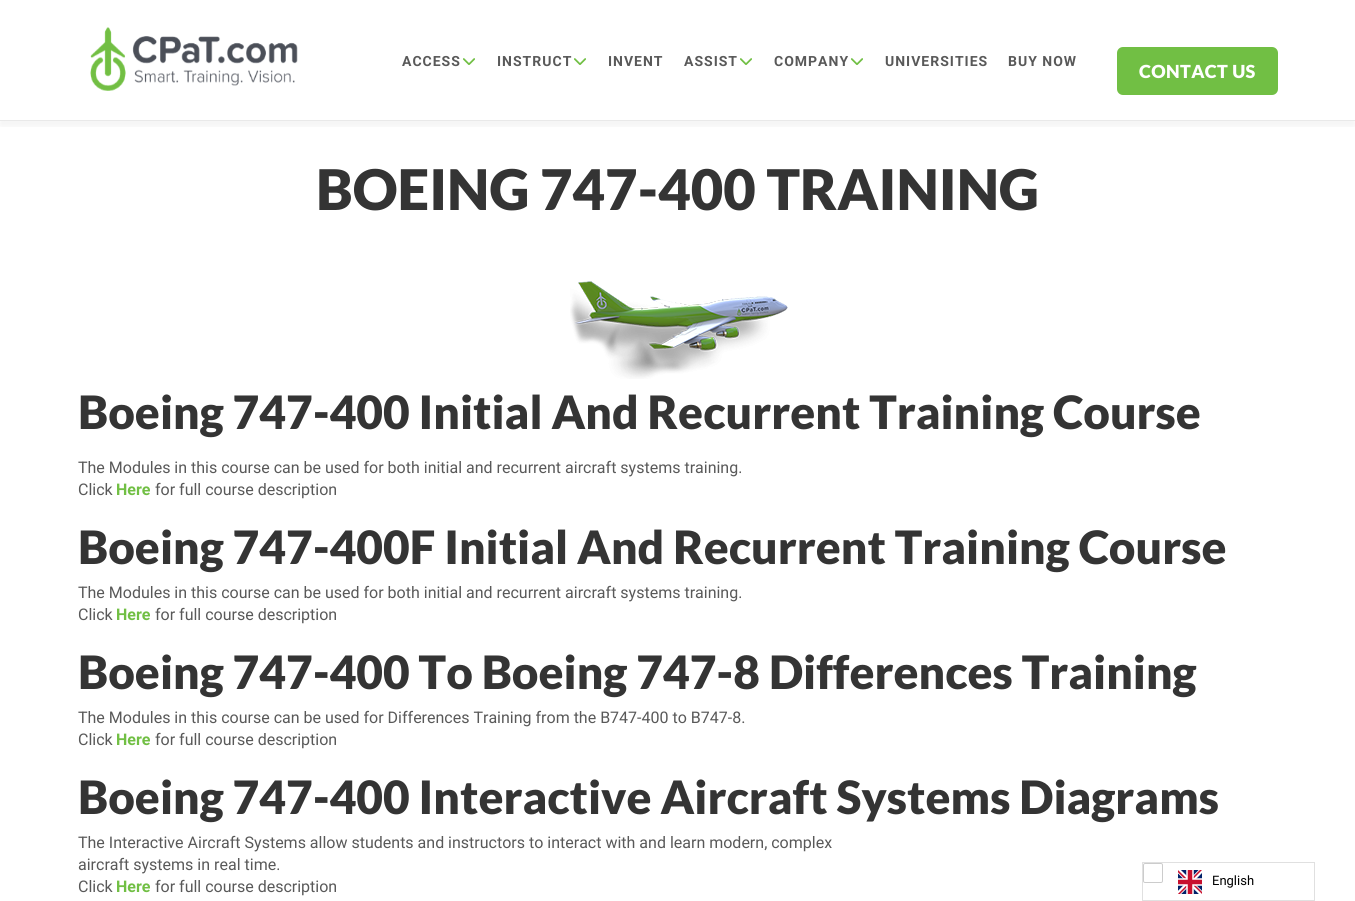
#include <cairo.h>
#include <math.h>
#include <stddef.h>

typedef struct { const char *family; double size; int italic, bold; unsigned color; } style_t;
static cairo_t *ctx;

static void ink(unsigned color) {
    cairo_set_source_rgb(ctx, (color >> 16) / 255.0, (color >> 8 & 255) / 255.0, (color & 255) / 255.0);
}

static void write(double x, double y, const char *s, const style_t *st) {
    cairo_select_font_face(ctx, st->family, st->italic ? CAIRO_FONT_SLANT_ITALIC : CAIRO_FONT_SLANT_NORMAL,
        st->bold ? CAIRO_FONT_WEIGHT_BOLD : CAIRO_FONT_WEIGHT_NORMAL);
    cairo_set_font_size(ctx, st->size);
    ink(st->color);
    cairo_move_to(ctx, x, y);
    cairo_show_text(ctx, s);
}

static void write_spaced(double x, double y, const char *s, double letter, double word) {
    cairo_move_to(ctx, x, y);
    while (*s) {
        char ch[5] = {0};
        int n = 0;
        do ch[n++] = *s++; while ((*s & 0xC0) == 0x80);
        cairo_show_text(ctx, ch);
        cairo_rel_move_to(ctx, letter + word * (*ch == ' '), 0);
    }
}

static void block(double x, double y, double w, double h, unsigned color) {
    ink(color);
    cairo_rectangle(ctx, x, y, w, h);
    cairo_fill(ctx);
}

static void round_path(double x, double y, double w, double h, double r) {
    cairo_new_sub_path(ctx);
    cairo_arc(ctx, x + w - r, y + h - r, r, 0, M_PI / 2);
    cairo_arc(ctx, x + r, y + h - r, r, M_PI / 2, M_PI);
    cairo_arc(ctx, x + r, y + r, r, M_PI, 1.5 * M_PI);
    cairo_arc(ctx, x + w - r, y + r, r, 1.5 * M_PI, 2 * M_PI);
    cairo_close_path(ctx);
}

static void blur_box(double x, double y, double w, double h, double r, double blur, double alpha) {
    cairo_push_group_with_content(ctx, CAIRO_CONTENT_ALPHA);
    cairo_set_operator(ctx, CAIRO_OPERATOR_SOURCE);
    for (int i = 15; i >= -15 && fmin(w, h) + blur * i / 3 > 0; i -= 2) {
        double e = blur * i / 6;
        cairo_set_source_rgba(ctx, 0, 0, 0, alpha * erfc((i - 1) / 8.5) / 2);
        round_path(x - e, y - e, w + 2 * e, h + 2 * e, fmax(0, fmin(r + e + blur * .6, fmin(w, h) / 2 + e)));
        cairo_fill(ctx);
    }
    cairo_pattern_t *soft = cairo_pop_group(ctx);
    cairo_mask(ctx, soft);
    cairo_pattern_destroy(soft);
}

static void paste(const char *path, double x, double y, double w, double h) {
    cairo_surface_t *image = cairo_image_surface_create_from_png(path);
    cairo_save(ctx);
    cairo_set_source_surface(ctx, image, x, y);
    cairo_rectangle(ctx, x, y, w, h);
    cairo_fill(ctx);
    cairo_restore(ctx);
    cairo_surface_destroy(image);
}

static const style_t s1 = {"Lato Black", 56, 0, 0, 0x343434};
static const style_t s2 = {"Lato Black", 46, 0, 0, 0x343434};
static const style_t s3 = {"Roboto", 16, 0, 0, 0x595959};
static const style_t s4 = {"Roboto", 16, 0, 1, 0x71bf44};
static const style_t s5 = {"Roboto", 13, 0, 0, 0x000000};

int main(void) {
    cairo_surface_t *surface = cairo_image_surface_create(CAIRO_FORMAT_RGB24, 1355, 901);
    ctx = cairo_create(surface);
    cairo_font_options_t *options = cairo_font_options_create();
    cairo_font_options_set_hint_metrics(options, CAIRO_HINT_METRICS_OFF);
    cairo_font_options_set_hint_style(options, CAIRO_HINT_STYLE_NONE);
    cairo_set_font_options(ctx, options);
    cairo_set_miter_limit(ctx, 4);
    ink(0xffffff);
    cairo_paint(ctx);
    cairo_save(ctx);
    cairo_rectangle(ctx, 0, 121, 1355, 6);
    cairo_clip(ctx);
    ink(0x000000);
    blur_box(0, 5, 1355, 121, 0, 5, 0.05);
    cairo_restore(ctx);
    block(0, 120, 1355, 1, 0xe9e9e9);
    paste("pic1.png", 90, 27, 208, 64);
    cairo_select_font_face(ctx, "Roboto", CAIRO_FONT_SLANT_NORMAL, CAIRO_FONT_WEIGHT_BOLD);
    cairo_set_font_size(ctx, 14);
    ink(0x595959);
    write_spaced(402, 66, "ACCESS", 1, 0);
    paste("pic2.png", 463, 58, 12, 7);
    write_spaced(497, 66, "INSTRUCT", 1, 0);
    paste("pic2.png", 574, 58, 12, 7);
    write_spaced(608, 66, "INVENT", 1, 0);
    write_spaced(684, 66, "ASSIST", 1, 0);
    paste("pic2.png", 740, 58, 12, 7);
    write_spaced(774, 66, "COMPANY", 1, 0);
    paste("pic2.png", 851, 58, 12, 7);
    write_spaced(885, 66, "UNIVERSITIES", 1, 0);
    write_spaced(1008, 66, "BUY NOW", 1, 0);
    ink(0x71bf44);
    round_path(1118, 48, 159, 46, 5);
    cairo_fill_preserve(ctx);
    cairo_stroke(ctx);
    cairo_select_font_face(ctx, "Lato Black", CAIRO_FONT_SLANT_NORMAL, CAIRO_FONT_WEIGHT_NORMAL);
    cairo_set_font_size(ctx, 18);
    ink(0xffffff);
    write_spaced(1139, 78, "CONTACT US", 0.4, 0);
    write(316, 210, "BOEING 747-400 TRAINING", &s1);
    paste("pic3.png", 570, 281, 218, 98);
    write(78, 429, "Boeing 747-400 Initial And Recurrent Training Course", &s2);
    write(78, 473, "The Modules in this course can be used for both initial and recurrent aircraft systems training.", &s3);
    write(78, 495, "Click", &s3);
    write(116, 495, "Here", &s4);
    write(155, 495, "for full course description", &s3);
    write(78, 564, "Boeing 747-400F Initial And Recurrent Training Course", &s2);
    write(78, 598, "The Modules in this course can be used for both initial and recurrent aircraft systems training.", &s3);
    write(78, 620, "Click", &s3);
    write(116, 620, "Here", &s4);
    write(155, 620, "for full course description", &s3);
    write(78, 689, "Boeing 747-400 To Boeing 747-8 Differences Training", &s2);
    write(78, 723, "The Modules in this course can be used for Differences Training from the B747-400 to B747-8.", &s3);
    write(78, 745, "Click", &s3);
    write(116, 745, "Here", &s4);
    write(155, 745, "for full course description", &s3);
    write(78, 814, "Boeing 747-400 Interactive Aircraft Systems Diagrams", &s2);
    write(78, 848, "The Interactive Aircraft Systems allow students and instructors to interact with and learn modern, complex", &s3);
    write(78, 870, "aircraft systems in real time.", &s3);
    write(78, 892, "Click", &s3);
    write(116, 892, "Here", &s4);
    write(155, 892, "for full course description", &s3);
    cairo_rectangle(ctx, 1142.5, 862.5, 172, 38);
    ink(0xe0e0e0);
    cairo_set_line_width(ctx, 1);
    cairo_stroke(ctx);
    round_path(1143.5, 863.5, 19, 19, 1.5);
    ink(0xcccccc);
    cairo_stroke(ctx);
    paste("pic4.png", 1178, 870, 24, 24);
    write(1212, 885, "English", &s5);
    cairo_surface_write_to_png(surface, "screenshot.png");
    cairo_font_options_destroy(options);
    cairo_destroy(ctx);
    cairo_surface_destroy(surface);
    return 0;
}
